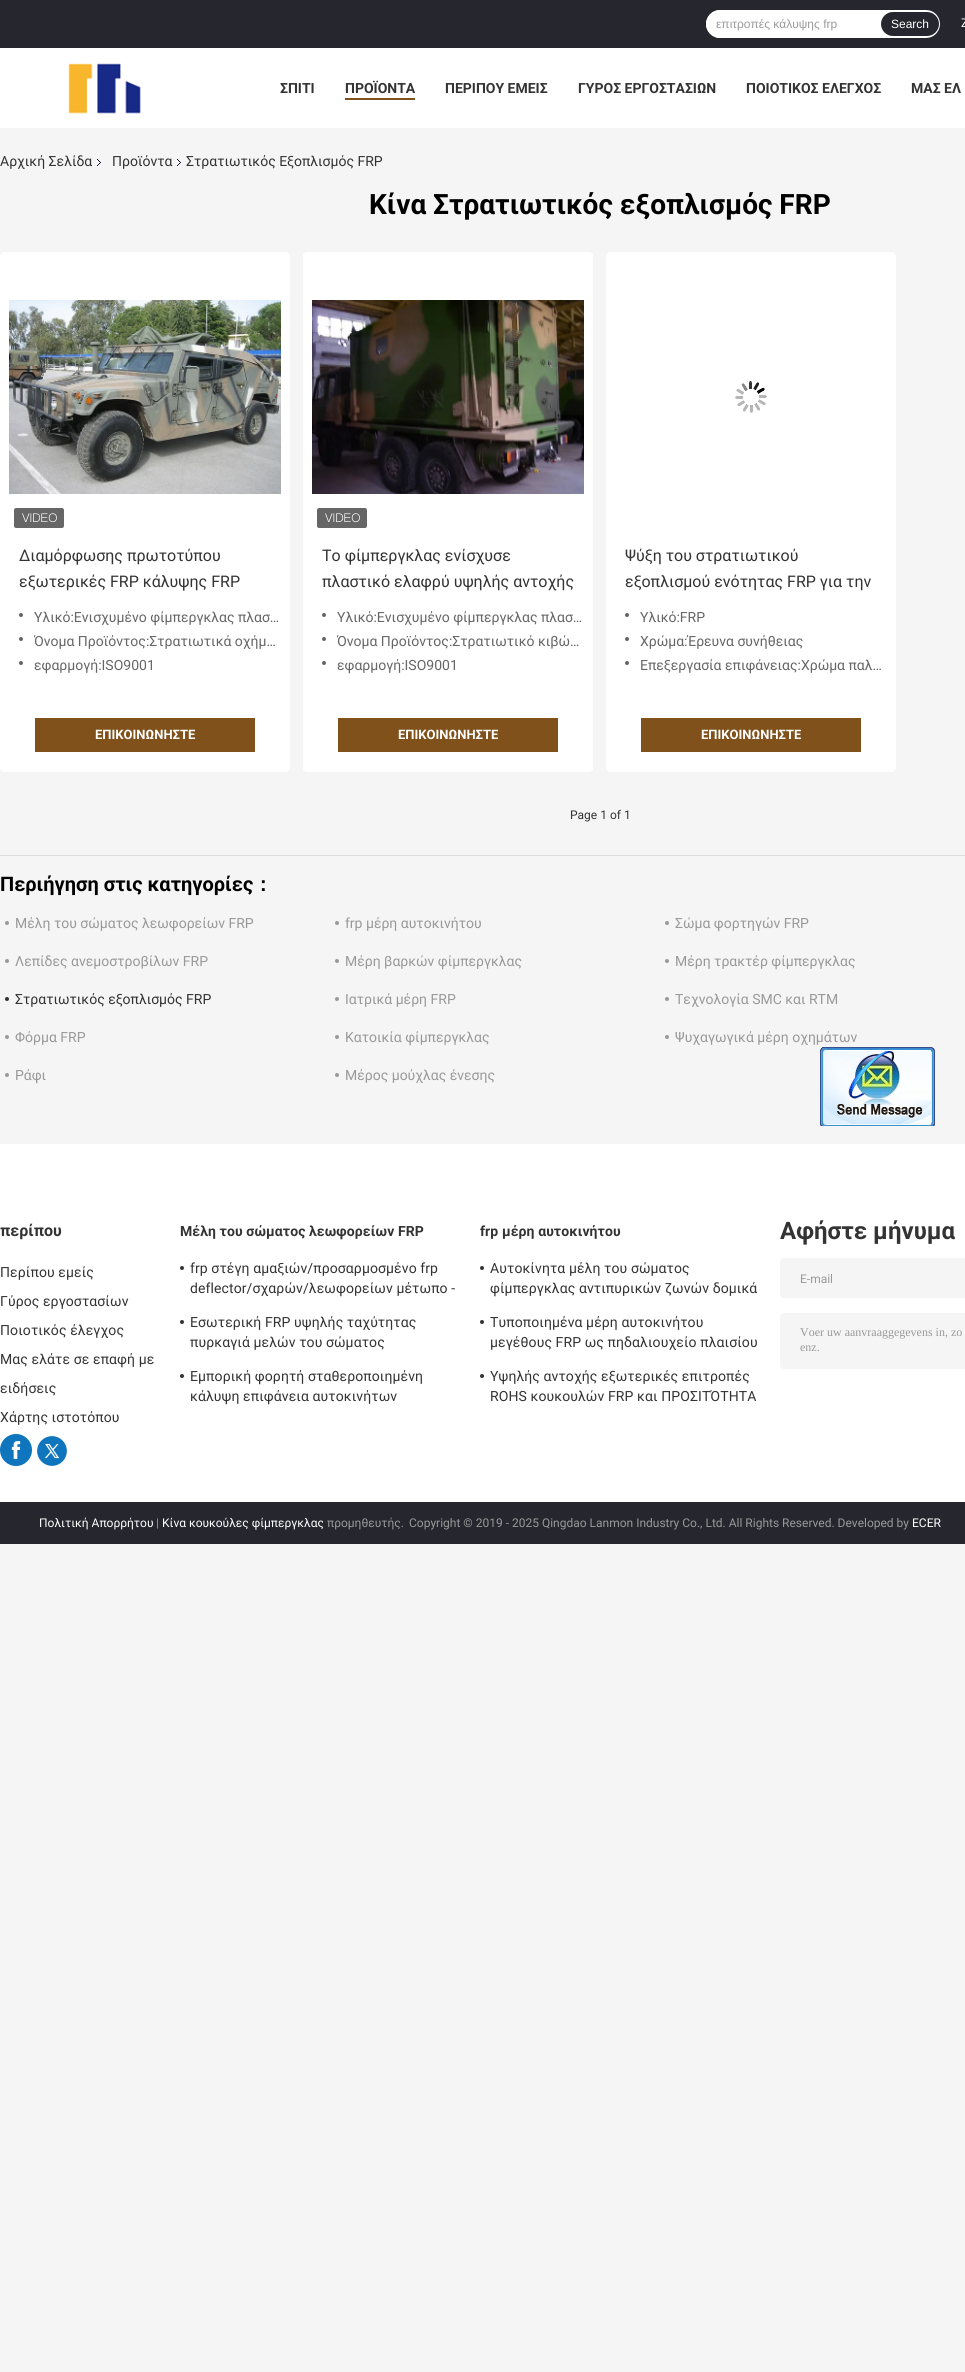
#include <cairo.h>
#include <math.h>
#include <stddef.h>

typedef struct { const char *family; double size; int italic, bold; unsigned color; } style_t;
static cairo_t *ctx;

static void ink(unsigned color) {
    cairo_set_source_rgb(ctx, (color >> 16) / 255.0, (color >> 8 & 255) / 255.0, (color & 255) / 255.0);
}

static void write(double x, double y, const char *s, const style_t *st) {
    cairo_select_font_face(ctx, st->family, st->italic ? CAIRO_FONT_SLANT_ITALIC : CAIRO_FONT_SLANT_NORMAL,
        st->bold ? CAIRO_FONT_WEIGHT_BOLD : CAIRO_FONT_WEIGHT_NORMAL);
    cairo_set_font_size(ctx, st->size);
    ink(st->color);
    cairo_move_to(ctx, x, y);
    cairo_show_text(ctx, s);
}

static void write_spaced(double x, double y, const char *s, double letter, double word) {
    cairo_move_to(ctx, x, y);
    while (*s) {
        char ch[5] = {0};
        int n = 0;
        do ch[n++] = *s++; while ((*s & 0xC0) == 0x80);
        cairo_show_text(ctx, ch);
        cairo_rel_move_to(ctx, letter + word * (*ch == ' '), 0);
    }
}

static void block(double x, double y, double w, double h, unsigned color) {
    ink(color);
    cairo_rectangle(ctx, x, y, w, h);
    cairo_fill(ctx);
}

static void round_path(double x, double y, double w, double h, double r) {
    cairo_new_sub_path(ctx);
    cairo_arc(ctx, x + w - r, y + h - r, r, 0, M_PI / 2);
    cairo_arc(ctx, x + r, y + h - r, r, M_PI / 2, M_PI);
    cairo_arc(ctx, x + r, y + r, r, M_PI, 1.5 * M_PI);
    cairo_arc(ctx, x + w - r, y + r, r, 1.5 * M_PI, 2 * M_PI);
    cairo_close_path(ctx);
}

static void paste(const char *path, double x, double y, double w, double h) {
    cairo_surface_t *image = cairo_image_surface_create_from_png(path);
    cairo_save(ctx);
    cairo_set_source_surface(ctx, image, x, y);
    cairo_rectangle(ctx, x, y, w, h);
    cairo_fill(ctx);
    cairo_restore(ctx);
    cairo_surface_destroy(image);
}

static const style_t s1 = {"Liberation Sans", 12, 0, 0, 0x999999};
static const style_t s2 = {"Liberation Sans", 12, 0, 0, 0xffffff};
static const style_t s3 = {"Roboto", 12, 0, 0, 0xffffff};
static const style_t s4 = {"Roboto", 14, 0, 1, 0x333333};
static const style_t s5 = {"Roboto", 14, 0, 0, 0x333333};
static const style_t s6 = {"Roboto", 28, 0, 1, 0x000000};
static const style_t s7 = {"Roboto", 16, 0, 0, 0x333333};
static const style_t s8 = {"Roboto", 14, 0, 0, 0x666666};
static const style_t s9 = {"Roboto", 13, 0, 1, 0xffffff};
static const style_t s10 = {"Roboto", 12, 0, 0, 0x333333};
static const style_t s11 = {"Roboto", 20, 0, 1, 0x000000};
static const style_t s12 = {"WenQuanYi Zen Hei", 20, 0, 1, 0x000000};
static const style_t s13 = {"Roboto", 14, 0, 0, 0x999999};
static const style_t s14 = {"Roboto", 16, 0, 1, 0x333333};
static const style_t s15 = {"Roboto", 24, 0, 1, 0x333333};
static const style_t s16 = {"Roboto", 12, 0, 0, 0x999999};
static const style_t s17 = {"Liberation Serif", 12, 0, 0, 0x999999};

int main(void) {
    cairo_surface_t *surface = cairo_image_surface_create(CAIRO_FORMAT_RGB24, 965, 2372);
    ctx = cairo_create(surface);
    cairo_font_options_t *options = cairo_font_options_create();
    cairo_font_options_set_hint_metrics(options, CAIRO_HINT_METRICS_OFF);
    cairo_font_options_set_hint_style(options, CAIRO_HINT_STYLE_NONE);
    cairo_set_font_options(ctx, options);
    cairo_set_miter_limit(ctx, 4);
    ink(0xf5f5f5);
    cairo_paint(ctx);
    block(0, 48, 965, 80, 0xffffff);
    block(0, 0, 965, 48, 0x26262e);
    ink(0xffffff);
    round_path(706, 10, 234, 28, 14);
    cairo_fill(ctx);
    cairo_new_path(ctx);
    cairo_move_to(ctx, 720, 10);
    cairo_line_to(ctx, 881, 10);
    cairo_line_to(ctx, 881, 38);
    cairo_line_to(ctx, 720, 38);
    cairo_curve_to(ctx, 712.5, 38, 706, 31.5, 706, 24);
    cairo_curve_to(ctx, 706, 16.5, 712.5, 10, 720, 10);
    cairo_close_path(ctx);
    cairo_fill(ctx);
    write(716, 28, "επιτροπές κάλυψης frp", &s1);
    ink(0x26262e);
    round_path(881, 12, 58, 24, 12);
    cairo_fill(ctx);
    write(891, 28, "Search", &s2);
    write(961, 27, "Ζ", &s3);
    paste("pic1.png", 68, 63, 73, 51);
    write(280, 93, "ΣΠΙΤΙ", &s4);
    write(345, 93, "ΠΡΟΪΟΝΤΑ", &s4);
    block(345, 98, 70, 2, 0x81511c);
    write(445, 93, "ΠΕΡΙΠΟΥ ΕΜΕΙΣ", &s4);
    write(578, 93, "ΓΥΡΟΣ ΕΡΓΟΣΤΑΣΙΩΝ", &s4);
    write(746, 93, "ΠΟΙΟΤΙΚΟΣ ΕΛΕΓΧΟΣ", &s4);
    write(911, 93, "ΜΑΣ ΕΛ", &s4);
    write(0, 166, "Αρχική Σελίδα", &s5);
    paste("pic2.png", 97, 159, 4, 7);
    write(112, 166, "Προϊόντα", &s5);
    paste("pic2.png", 177, 159, 4, 7);
    write(186, 166, "Στρατιωτικός Εξοπλισμός FRP", &s5);
    write(369, 214, "Κίνα Στρατιωτικός εξοπλισμός FRP", &s6);
    ink(0xffffff);
    round_path(0, 252, 290, 520, 4);
    cairo_fill(ctx);
    paste("pic3.png", 9, 300, 272, 194);
    paste("pic4.png", 14, 508, 50, 20);
    write(19, 561, "Διαμόρφωσης πρωτοτύπου", &s7);
    write(19, 587, "εξωτερικές FRP κάλυψης FRP", &s7);
    ink(0x666666);
    cairo_new_path(ctx);
    cairo_arc(ctx, 21, 615, 2, 0, 2 * M_PI);
    cairo_fill(ctx);
    write(34, 622, "Υλικό:Ενισχυμένο φίμπεργκλας πλασ…", &s8);
    cairo_new_path(ctx);
    cairo_arc(ctx, 21, 639, 2, 0, 2 * M_PI);
    cairo_fill(ctx);
    write(34, 646, "Όνομα Προϊόντος:Στρατιωτικά οχήμ…", &s8);
    cairo_new_path(ctx);
    cairo_arc(ctx, 21, 663, 2, 0, 2 * M_PI);
    cairo_fill(ctx);
    write(34, 670, "εφαρμογή:ISO9001", &s8);
    block(35, 718, 220, 34, 0x81511c);
    write(95, 739, "ΕΠΙΚΟΙΝΩΝΗΣΤΕ", &s9);
    round_path(303, 252, 290, 520, 4);
    cairo_fill(ctx);
    paste("pic5.png", 312, 300, 272, 194);
    paste("pic4.png", 317, 508, 50, 20);
    write(322, 561, "Το φίμπεργκλας ενίσχυσε", &s7);
    write(322, 587, "πλαστικό ελαφρύ υψηλής αντοχής", &s7);
    ink(0x666666);
    cairo_new_path(ctx);
    cairo_arc(ctx, 324, 615, 2, 0, 2 * M_PI);
    cairo_fill(ctx);
    write(337, 622, "Υλικό:Ενισχυμένο φίμπεργκλας πλασ…", &s8);
    cairo_new_path(ctx);
    cairo_arc(ctx, 324, 639, 2, 0, 2 * M_PI);
    cairo_fill(ctx);
    write(337, 646, "Όνομα Προϊόντος:Στρατιωτικό κιβώ…", &s8);
    cairo_new_path(ctx);
    cairo_arc(ctx, 324, 663, 2, 0, 2 * M_PI);
    cairo_fill(ctx);
    write(337, 670, "εφαρμογή:ISO9001", &s8);
    block(338, 718, 220, 34, 0x81511c);
    write(398, 739, "ΕΠΙΚΟΙΝΩΝΗΣΤΕ", &s9);
    round_path(606, 252, 290, 520, 4);
    cairo_fill(ctx);
    paste("pic6.png", 735, 381, 32, 32);
    write(625, 561, "Ψύξη του στρατιωτικού", &s7);
    write(625, 587, "εξοπλισμού ενότητας FRP για την", &s7);
    ink(0x666666);
    cairo_new_path(ctx);
    cairo_arc(ctx, 627, 615, 2, 0, 2 * M_PI);
    cairo_fill(ctx);
    write(640, 622, "Υλικό:FRP", &s8);
    cairo_new_path(ctx);
    cairo_arc(ctx, 627, 639, 2, 0, 2 * M_PI);
    cairo_fill(ctx);
    write(640, 646, "Χρώμα:Έρευνα συνήθειας", &s8);
    cairo_new_path(ctx);
    cairo_arc(ctx, 627, 663, 2, 0, 2 * M_PI);
    cairo_fill(ctx);
    write(640, 670, "Επεξεργασία επιφάνειας:Χρώμα παλ…", &s8);
    block(641, 718, 220, 34, 0x81511c);
    write(701, 739, "ΕΠΙΚΟΙΝΩΝΗΣΤΕ", &s9);
    write(570, 819, "Page 1 of 1", &s10);
    block(0, 855, 965, 1, 0xdddddd);
    write(0, 891, "Περιήγηση στις κατηγορίες", &s11);
    write(253, 891, "：", &s12);
    ink(0x999999);
    cairo_new_path(ctx);
    cairo_arc(ctx, 7, 923, 2, 0, 2 * M_PI);
    cairo_fill(ctx);
    write(15, 928, "Μέλη του σώματος λεωφορείων FRP", &s13);
    cairo_new_path(ctx);
    cairo_arc(ctx, 337, 923, 2, 0, 2 * M_PI);
    cairo_fill(ctx);
    write(345, 928, "frp μέρη αυτοκινήτου", &s13);
    cairo_new_path(ctx);
    cairo_arc(ctx, 667, 923, 2, 0, 2 * M_PI);
    cairo_fill(ctx);
    write(675, 928, "Σώμα φορτηγών FRP", &s13);
    cairo_new_path(ctx);
    cairo_arc(ctx, 7, 961, 2, 0, 2 * M_PI);
    cairo_fill(ctx);
    write(15, 966, "Λεπίδες ανεμοστροβίλων FRP", &s13);
    cairo_new_path(ctx);
    cairo_arc(ctx, 337, 961, 2, 0, 2 * M_PI);
    cairo_fill(ctx);
    write(345, 966, "Μέρη βαρκών φίμπεργκλας", &s13);
    cairo_new_path(ctx);
    cairo_arc(ctx, 667, 961, 2, 0, 2 * M_PI);
    cairo_fill(ctx);
    write(675, 966, "Μέρη τρακτέρ φίμπεργκλας", &s13);
    ink(0x333333);
    cairo_new_path(ctx);
    cairo_arc(ctx, 7, 999, 2, 0, 2 * M_PI);
    cairo_fill(ctx);
    write(15, 1004, "Στρατιωτικός εξοπλισμός FRP", &s5);
    ink(0x999999);
    cairo_new_path(ctx);
    cairo_arc(ctx, 337, 999, 2, 0, 2 * M_PI);
    cairo_fill(ctx);
    write(345, 1004, "Ιατρικά μέρη FRP", &s13);
    cairo_new_path(ctx);
    cairo_arc(ctx, 667, 999, 2, 0, 2 * M_PI);
    cairo_fill(ctx);
    write(675, 1004, "Τεχνολογία SMC και RTM", &s13);
    cairo_new_path(ctx);
    cairo_arc(ctx, 7, 1037, 2, 0, 2 * M_PI);
    cairo_fill(ctx);
    write(15, 1042, "Φόρμα FRP", &s13);
    cairo_new_path(ctx);
    cairo_arc(ctx, 337, 1037, 2, 0, 2 * M_PI);
    cairo_fill(ctx);
    write(345, 1042, "Κατοικία φίμπεργκλας", &s13);
    cairo_new_path(ctx);
    cairo_arc(ctx, 667, 1037, 2, 0, 2 * M_PI);
    cairo_fill(ctx);
    write(675, 1042, "Ψυχαγωγικά μέρη οχημάτων", &s13);
    cairo_new_path(ctx);
    cairo_arc(ctx, 7, 1075, 2, 0, 2 * M_PI);
    cairo_fill(ctx);
    write(15, 1080, "Ράφι", &s13);
    cairo_new_path(ctx);
    cairo_arc(ctx, 337, 1075, 2, 0, 2 * M_PI);
    cairo_fill(ctx);
    write(345, 1080, "Μέρος μούχλας ένεσης", &s13);
    paste("pic7.png", 820, 1047, 115, 79);
    block(0, 1144, 965, 358, 0xffffff);
    write(0, 1236, "περίπου", &s14);
    cairo_select_font_face(ctx, "Roboto", CAIRO_FONT_SLANT_NORMAL, CAIRO_FONT_WEIGHT_NORMAL);
    cairo_set_font_size(ctx, 14);
    write_spaced(0, 1277, "Περίπου εμείς", 0.1, 0);
    write_spaced(0, 1306, "Γύρος εργοστασίων", 0.1, 0);
    write_spaced(0, 1335, "Ποιοτικός έλεγχος", 0.1, 0);
    write_spaced(0, 1364, "Μας ελάτε σε επαφή με", 0.1, 0);
    write_spaced(0, 1393, "ειδήσεις", 0.1, 0);
    write_spaced(0, 1422, "Χάρτης ιστοτόπου", 0.1, 0);
    cairo_select_font_face(ctx, "Roboto", CAIRO_FONT_SLANT_NORMAL, CAIRO_FONT_WEIGHT_BOLD);
    write_spaced(180, 1236, "Μέλη του σώματος λεωφορείων FRP", 0.1, 0);
    cairo_new_path(ctx);
    cairo_arc(ctx, 182, 1268, 2, 0, 2 * M_PI);
    cairo_fill(ctx);
    cairo_select_font_face(ctx, "Roboto", CAIRO_FONT_SLANT_NORMAL, CAIRO_FONT_WEIGHT_NORMAL);
    write_spaced(190, 1273, "frp στέγη αμαξιών/προσαρμοσμένο frp", 0.1, 0);
    write_spaced(190, 1293, "deflector/σχαρών/λεωφορείων μέτωπο -", 0.1, 0);
    cairo_new_path(ctx);
    cairo_arc(ctx, 182, 1322, 2, 0, 2 * M_PI);
    cairo_fill(ctx);
    write_spaced(190, 1327, "Εσωτερική FRP υψηλής ταχύτητας", 0.1, 0);
    write_spaced(190, 1347, "πυρκαγιά μελών του σώματος", 0.1, 0);
    cairo_new_path(ctx);
    cairo_arc(ctx, 182, 1376, 2, 0, 2 * M_PI);
    cairo_fill(ctx);
    write_spaced(190, 1381, "Εμπορική φορητή σταθεροποιημένη", 0.1, 0);
    write_spaced(190, 1401, "κάλυψη επιφάνεια αυτοκινήτων", 0.1, 0);
    cairo_select_font_face(ctx, "Roboto", CAIRO_FONT_SLANT_NORMAL, CAIRO_FONT_WEIGHT_BOLD);
    write_spaced(480, 1236, "frp μέρη αυτοκινήτου", 0.1, 0);
    cairo_new_path(ctx);
    cairo_arc(ctx, 482, 1268, 2, 0, 2 * M_PI);
    cairo_fill(ctx);
    cairo_select_font_face(ctx, "Roboto", CAIRO_FONT_SLANT_NORMAL, CAIRO_FONT_WEIGHT_NORMAL);
    write_spaced(490, 1273, "Αυτοκίνητα μέλη του σώματος", 0.1, 0);
    write_spaced(490, 1293, "φίμπεργκλας αντιπυρικών ζωνών δομικά", 0.1, 0);
    cairo_new_path(ctx);
    cairo_arc(ctx, 482, 1322, 2, 0, 2 * M_PI);
    cairo_fill(ctx);
    write_spaced(490, 1327, "Τυποποιημένα μέρη αυτοκινήτου", 0.1, 0);
    write_spaced(490, 1347, "μεγέθους FRP ως πηδαλιουχείο πλαισίου", 0.1, 0);
    cairo_new_path(ctx);
    cairo_arc(ctx, 482, 1376, 2, 0, 2 * M_PI);
    cairo_fill(ctx);
    write_spaced(490, 1381, "Υψηλής αντοχής εξωτερικές επιτροπές", 0.1, 0);
    write_spaced(490, 1401, "ROHS κουκουλών FRP και ΠΡΟΣΙΤΌΤΗΤΑ", 0.1, 0);
    write(780, 1239, "Αφήστε μήνυμα", &s15);
    ink(0xf5f5f5);
    round_path(780, 1258, 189, 40, 4);
    cairo_fill(ctx);
    write(800, 1283, "E-mail", &s16);
    ink(0xf5f5f5);
    round_path(780, 1313, 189, 56, 4);
    cairo_fill(ctx);
    write(800, 1336, "Voer uw aanvraaggegevens in, zo", &s17);
    write(800, 1351, "enz.", &s17);
    paste("pic8.png", 0, 1434, 32, 32);
    paste("pic9.png", 37, 1436, 30, 30);
    block(0, 1502, 965, 42, 0x26262e);
    write(39, 1527, "Πολιτική Απορρήτου", &s3);
    write(156, 1527, "|", &s16);
    write(162, 1527, "Κίνα κουκούλες φίμπεργκλας", &s3);
    write(327, 1527, "προμηθευτής.", &s16);
    write(409, 1527, "Copyright © 2019 - 2025 Qingdao Lanmon Industry Co., Ltd. All Rights Reserved. Developed by", &s16);
    write(912, 1527, "ECER", &s3);
    cairo_surface_write_to_png(surface, "screenshot.png");
    cairo_font_options_destroy(options);
    cairo_destroy(ctx);
    cairo_surface_destroy(surface);
    return 0;
}
